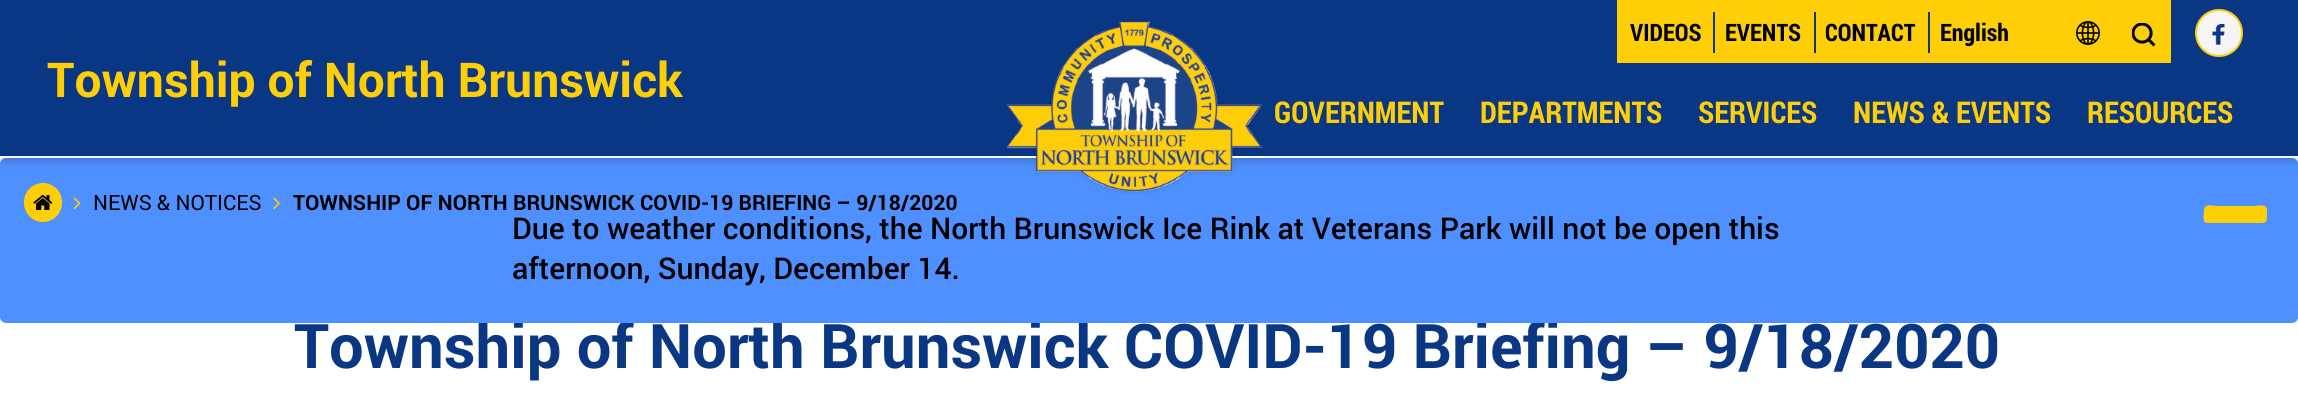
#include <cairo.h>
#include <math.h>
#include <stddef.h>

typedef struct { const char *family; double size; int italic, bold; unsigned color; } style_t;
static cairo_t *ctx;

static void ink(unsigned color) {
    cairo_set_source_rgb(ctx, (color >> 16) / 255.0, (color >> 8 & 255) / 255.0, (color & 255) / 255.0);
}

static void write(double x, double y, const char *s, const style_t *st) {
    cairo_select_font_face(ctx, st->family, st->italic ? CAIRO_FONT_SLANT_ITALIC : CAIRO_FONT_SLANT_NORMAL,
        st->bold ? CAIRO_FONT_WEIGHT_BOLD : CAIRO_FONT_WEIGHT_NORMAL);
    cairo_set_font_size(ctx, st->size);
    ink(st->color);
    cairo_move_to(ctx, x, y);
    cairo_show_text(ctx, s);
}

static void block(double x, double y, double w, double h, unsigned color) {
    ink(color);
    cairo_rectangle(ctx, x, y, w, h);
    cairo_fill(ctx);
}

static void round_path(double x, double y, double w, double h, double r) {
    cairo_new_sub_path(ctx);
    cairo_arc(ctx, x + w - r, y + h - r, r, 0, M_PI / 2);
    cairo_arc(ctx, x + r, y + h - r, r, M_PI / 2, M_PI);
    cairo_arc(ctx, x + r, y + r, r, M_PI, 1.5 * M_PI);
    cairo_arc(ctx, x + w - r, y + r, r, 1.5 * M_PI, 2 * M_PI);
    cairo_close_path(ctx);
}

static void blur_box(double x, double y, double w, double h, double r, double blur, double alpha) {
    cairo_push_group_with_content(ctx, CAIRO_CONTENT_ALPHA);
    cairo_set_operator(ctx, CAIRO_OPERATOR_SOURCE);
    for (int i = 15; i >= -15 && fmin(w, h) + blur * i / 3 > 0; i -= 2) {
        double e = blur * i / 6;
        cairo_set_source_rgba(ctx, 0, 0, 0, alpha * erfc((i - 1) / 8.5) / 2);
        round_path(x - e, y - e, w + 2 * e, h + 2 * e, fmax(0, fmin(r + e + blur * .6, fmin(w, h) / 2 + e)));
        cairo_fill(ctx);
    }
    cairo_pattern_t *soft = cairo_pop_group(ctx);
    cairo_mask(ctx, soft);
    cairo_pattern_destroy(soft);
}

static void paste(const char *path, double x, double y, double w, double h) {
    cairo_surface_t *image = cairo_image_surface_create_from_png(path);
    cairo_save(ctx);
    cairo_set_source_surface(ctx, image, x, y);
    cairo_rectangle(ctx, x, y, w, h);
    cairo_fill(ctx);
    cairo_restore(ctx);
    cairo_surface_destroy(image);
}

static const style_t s1 = {"Roboto", 61.5, 0, 1, 0x0a3784};
static const style_t s2 = {"Roboto", 48, 0, 1, 0xfece07};
static const style_t s3 = {"Roboto Condensed", 24, 0, 1, 0x000000};
static const style_t s4 = {"Roboto Condensed", 30, 0, 1, 0xfece07};
static const style_t s5 = {"Roboto", 21, 0, 0, 0x000000};
static const style_t s6 = {"Roboto", 21, 0, 1, 0x000000};
static const style_t s7 = {"Roboto Medium", 30, 0, 0, 0x000000};

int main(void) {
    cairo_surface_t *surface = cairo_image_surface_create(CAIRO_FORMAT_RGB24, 2298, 395);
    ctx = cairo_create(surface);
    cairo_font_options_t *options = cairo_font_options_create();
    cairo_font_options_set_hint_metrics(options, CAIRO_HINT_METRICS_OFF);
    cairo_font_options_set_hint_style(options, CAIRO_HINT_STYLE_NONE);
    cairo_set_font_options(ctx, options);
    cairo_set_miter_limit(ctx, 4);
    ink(0xffffff);
    cairo_paint(ctx);
    write(294, 368, "Township of North Brunswick COVID-19 Briefing – 9/18/2020", &s1);
    ink(0x4e90ff);
    round_path(0, 158, 2298, 165, 6);
    cairo_fill(ctx);
    ink(0x000000);
    blur_box(0, 5, 2298, 157, 0, 4.5, 0.16);
    block(0, 0, 2298, 156, 0x0a3784);
    block(0, 156, 2298, 2, 0xffffff);
    write(47, 97, "Township of North Brunswick", &s2);
    paste("pic1.png", 1006, 19, 257, 175);
    block(1617, 0, 554, 63, 0xfece07);
    write(1630, 41, "VIDEOS", &s3);
    block(1713, 12, 2, 41, 0x0a3784);
    write(1725, 41, "EVENTS", &s3);
    block(1814, 12, 2, 41, 0x0a3784);
    write(1825, 41, "CONTACT", &s3);
    block(1928, 12, 2, 41, 0x0a3784);
    paste("pic2.png", 2076, 21, 24, 24);
    write(1940, 41, "English", &s3);
    paste("pic3.png", 2132, 23, 24, 24);
    ink(0xf5f5f5);
    cairo_arc(ctx, 2219, 33, 23, 0, 2 * M_PI);
    cairo_fill_preserve(ctx);
    ink(0xfece07);
    cairo_stroke(ctx);
    paste("pic4.png", 2212, 24, 13, 21);
    write(1274, 123, "GOVERNMENT", &s4);
    write(1480, 123, "DEPARTMENTS", &s4);
    write(1698, 123, "SERVICES", &s4);
    write(1853, 123, "NEWS & EVENTS", &s4);
    write(2087, 123, "RESOURCES", &s4);
    round_path(24, 183, 38, 39, 19);
    cairo_fill(ctx);
    paste("pic5.png", 33, 195, 20, 15);
    paste("pic6.png", 73, 197, 8, 12);
    write(93, 210, "NEWS & NOTICES", &s5);
    paste("pic7.png", 273, 197, 7, 12);
    write(293, 210, "TOWNSHIP OF NORTH BRUNSWICK COVID-19 BRIEFING – 9/18/2020", &s6);
    ink(0xfece07);
    cairo_new_path(ctx);
    cairo_move_to(ctx, 2267, 210);
    cairo_curve_to(ctx, 2267, 224, 2268, 223, 2254, 223);
    cairo_line_to(ctx, 2217, 223);
    cairo_curve_to(ctx, 2202, 223, 2203, 224, 2204, 210);
    cairo_curve_to(ctx, 2204, 203, 2214, 206, 2217, 206);
    cairo_line_to(ctx, 2254, 206);
    cairo_curve_to(ctx, 2257, 206, 2267, 203, 2267, 210);
    cairo_close_path(ctx);
    cairo_fill(ctx);
    write(512, 239, "Due to weather conditions, the North Brunswick Ice Rink at Veterans Park will not be open this", &s7);
    write(512, 279, "afternoon, Sunday, December 14.", &s7);
    cairo_surface_write_to_png(surface, "screenshot.png");
    cairo_font_options_destroy(options);
    cairo_destroy(ctx);
    cairo_surface_destroy(surface);
    return 0;
}
